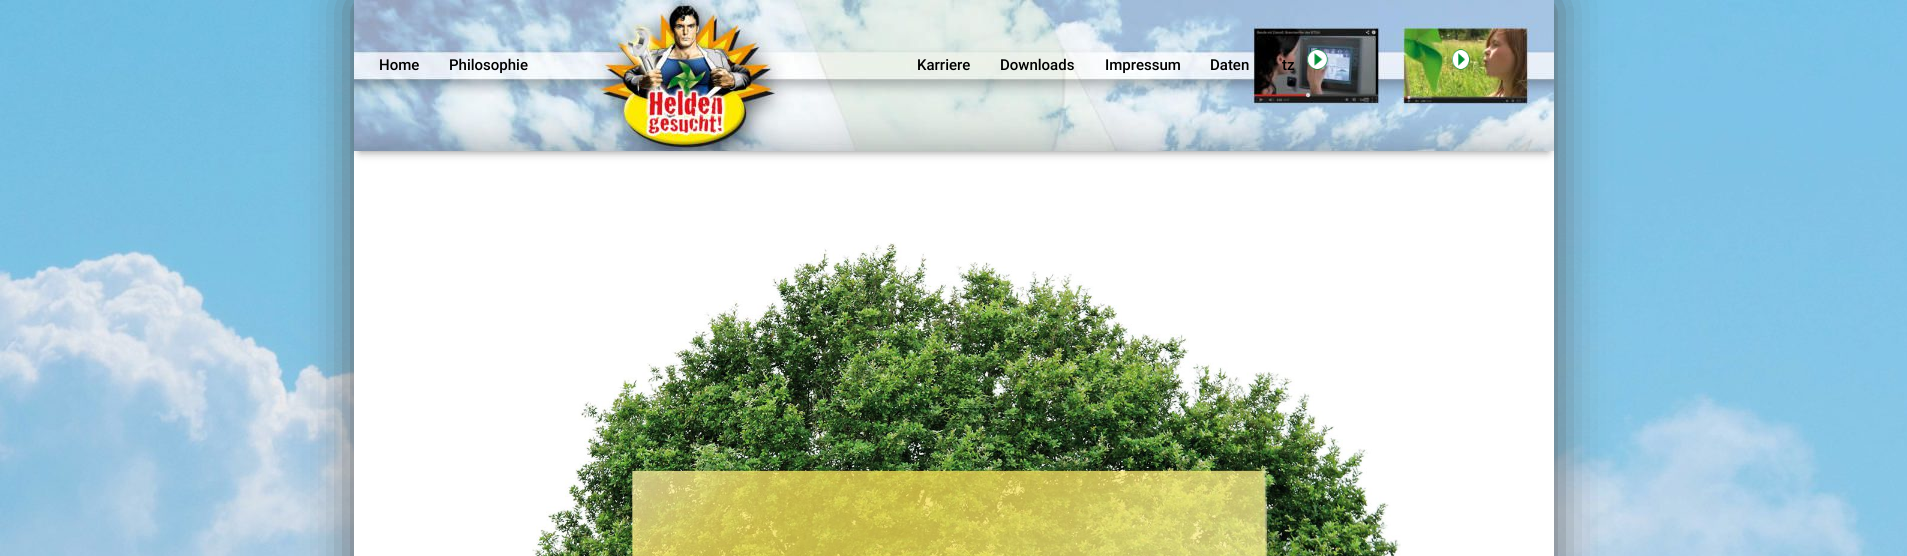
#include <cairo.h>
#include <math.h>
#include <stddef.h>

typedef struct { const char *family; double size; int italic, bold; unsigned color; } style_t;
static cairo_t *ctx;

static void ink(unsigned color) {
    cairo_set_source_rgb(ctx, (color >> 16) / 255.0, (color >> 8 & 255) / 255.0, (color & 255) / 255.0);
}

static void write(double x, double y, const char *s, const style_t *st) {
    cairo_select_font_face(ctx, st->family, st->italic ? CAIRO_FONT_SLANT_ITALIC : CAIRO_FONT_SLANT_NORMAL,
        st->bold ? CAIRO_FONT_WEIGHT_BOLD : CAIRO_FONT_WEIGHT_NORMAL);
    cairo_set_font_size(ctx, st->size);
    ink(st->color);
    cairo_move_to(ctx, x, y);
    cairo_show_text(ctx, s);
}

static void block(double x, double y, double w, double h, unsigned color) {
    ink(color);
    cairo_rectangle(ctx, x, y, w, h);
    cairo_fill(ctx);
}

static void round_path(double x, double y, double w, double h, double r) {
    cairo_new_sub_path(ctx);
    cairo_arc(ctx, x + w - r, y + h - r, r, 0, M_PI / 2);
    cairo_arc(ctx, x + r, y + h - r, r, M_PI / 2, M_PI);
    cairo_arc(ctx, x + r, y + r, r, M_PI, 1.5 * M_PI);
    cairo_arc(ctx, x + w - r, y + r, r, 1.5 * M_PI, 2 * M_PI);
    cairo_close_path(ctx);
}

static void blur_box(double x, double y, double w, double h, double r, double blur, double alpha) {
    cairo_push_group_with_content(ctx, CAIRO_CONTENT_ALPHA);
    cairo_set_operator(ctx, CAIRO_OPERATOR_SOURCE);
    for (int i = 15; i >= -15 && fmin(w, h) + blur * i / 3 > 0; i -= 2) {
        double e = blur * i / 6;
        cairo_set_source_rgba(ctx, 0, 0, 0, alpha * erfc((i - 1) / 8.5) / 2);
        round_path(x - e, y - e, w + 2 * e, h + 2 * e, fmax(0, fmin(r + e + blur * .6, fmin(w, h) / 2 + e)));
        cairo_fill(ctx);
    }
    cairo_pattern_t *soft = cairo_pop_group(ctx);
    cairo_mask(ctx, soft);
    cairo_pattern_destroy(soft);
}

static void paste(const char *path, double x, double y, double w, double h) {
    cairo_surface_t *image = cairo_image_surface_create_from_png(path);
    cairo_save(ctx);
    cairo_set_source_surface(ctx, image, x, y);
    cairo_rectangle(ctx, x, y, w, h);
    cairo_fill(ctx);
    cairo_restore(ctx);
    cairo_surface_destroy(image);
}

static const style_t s1 = {"Roboto Medium", 15, 0, 0, 0x000000};

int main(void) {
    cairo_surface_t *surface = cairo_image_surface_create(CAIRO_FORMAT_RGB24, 1907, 556);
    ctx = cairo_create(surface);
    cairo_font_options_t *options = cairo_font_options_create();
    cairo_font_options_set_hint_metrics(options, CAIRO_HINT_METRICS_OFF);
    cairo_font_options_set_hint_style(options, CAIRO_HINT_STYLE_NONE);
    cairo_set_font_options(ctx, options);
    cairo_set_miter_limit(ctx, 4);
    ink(0xffffff);
    cairo_paint(ctx);
    paste("pic1.png", 0, 0, 1907, 556);
    ink(0x5f5e5e);
    blur_box(354, 0, 1200, 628, 0, 24, 1);
    block(354, 151, 1200, 405, 0xffffff);
    ink(0x000000);
    blur_box(360, 12, 1188, 139, 0, 5, 0.5);
    paste("pic2.png", 354, 0, 1200, 151);
    write(379, 70, "Home", &s1);
    write(449, 70, "Philosophie", &s1);
    write(917, 70, "Karriere", &s1);
    write(1000, 70, "Downloads", &s1);
    write(1105, 70, "Impressum", &s1);
    write(1210, 70, "Daten", &s1);
    write(1282, 70, "tz", &s1);
    paste("pic3.png", 1307, 49, 21, 21);
    paste("pic4.png", 1452, 49, 18, 21);
    paste("pic5.png", 532, 242, 869, 314);
    cairo_surface_write_to_png(surface, "screenshot.png");
    cairo_font_options_destroy(options);
    cairo_destroy(ctx);
    cairo_surface_destroy(surface);
    return 0;
}
